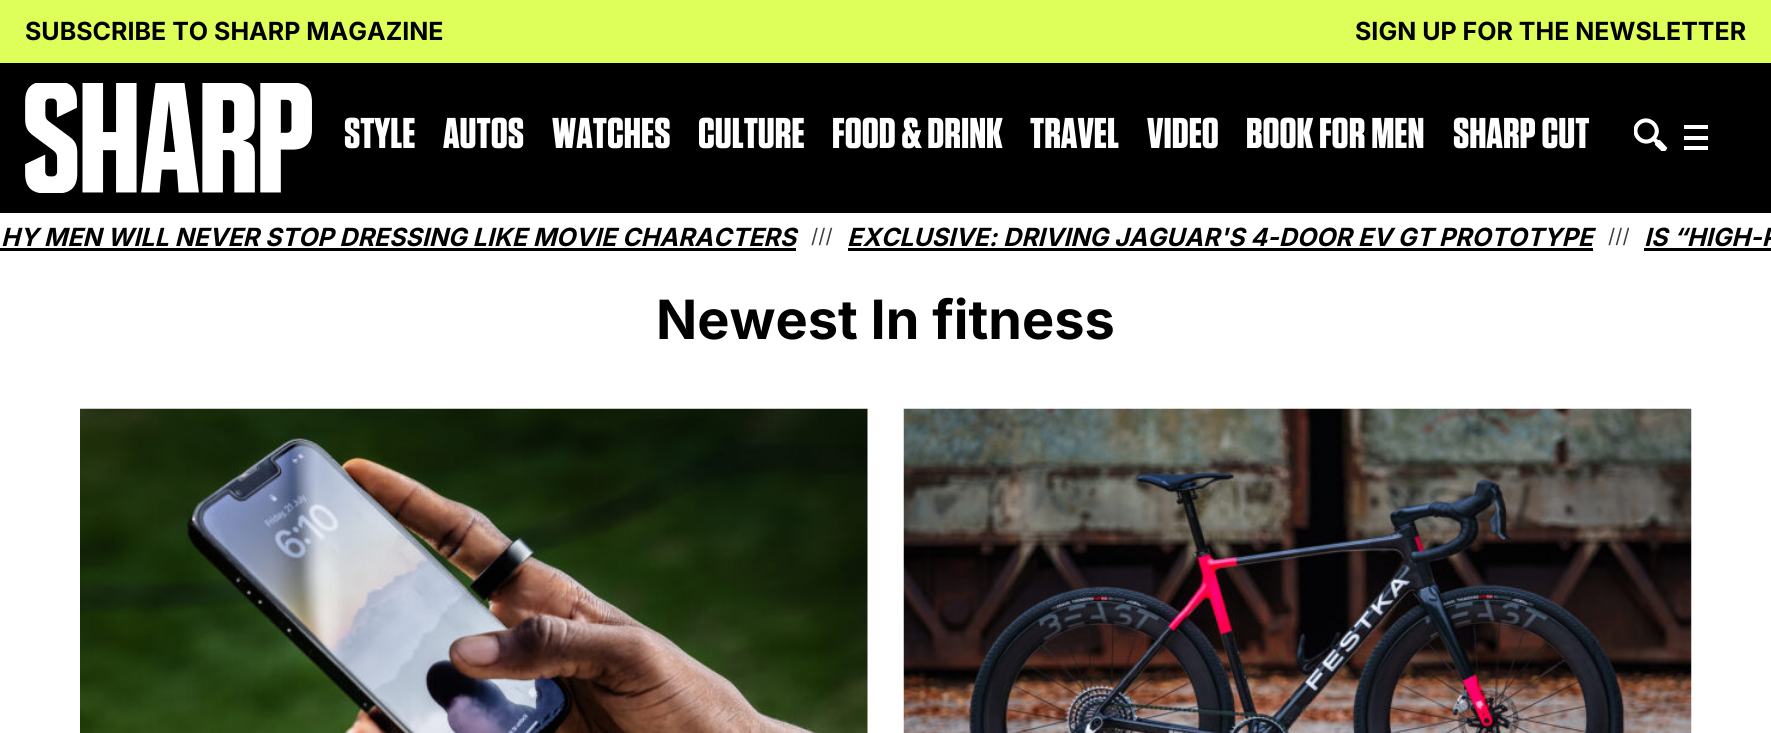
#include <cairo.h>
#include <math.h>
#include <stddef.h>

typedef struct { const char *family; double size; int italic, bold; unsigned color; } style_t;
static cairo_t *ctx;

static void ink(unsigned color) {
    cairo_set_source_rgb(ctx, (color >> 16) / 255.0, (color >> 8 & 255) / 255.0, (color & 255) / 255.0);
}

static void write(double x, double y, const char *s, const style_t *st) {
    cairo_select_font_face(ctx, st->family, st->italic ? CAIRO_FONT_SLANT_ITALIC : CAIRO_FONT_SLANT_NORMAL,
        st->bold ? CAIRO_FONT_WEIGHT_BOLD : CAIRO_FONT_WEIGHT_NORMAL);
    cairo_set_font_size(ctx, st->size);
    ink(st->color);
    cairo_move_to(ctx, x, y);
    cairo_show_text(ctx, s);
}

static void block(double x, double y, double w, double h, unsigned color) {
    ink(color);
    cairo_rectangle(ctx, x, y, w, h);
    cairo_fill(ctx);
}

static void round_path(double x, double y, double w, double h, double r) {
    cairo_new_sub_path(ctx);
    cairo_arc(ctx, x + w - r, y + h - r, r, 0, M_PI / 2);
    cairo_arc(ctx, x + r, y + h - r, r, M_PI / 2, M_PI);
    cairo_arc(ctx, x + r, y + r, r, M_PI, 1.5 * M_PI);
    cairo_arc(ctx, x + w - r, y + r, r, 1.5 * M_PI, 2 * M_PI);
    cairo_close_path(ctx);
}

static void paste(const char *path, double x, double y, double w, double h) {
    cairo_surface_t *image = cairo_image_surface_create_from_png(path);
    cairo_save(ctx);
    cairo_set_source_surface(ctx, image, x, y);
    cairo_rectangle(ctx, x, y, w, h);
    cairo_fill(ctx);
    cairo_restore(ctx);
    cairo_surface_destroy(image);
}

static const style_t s1 = {"Inter", 25, 0, 1, 0x000000};
static const style_t s2 = {"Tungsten", 43, 0, 1, 0xffffff};
static const style_t s3 = {"Inter", 25, 1, 1, 0x000000};
static const style_t s4 = {"Inter", 20, 0, 0, 0x404040};
static const style_t s5 = {"Inter", 54.1, 0, 1, 0x000000};

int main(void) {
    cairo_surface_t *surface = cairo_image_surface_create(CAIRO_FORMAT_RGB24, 1771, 733);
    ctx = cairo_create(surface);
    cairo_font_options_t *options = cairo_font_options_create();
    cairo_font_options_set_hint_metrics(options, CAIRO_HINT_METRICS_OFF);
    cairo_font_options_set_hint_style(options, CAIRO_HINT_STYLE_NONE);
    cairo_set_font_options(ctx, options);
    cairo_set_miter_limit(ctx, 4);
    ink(0xffffff);
    cairo_paint(ctx);
    block(0, 63, 1771, 150, 0x000000);
    block(0, 0, 1771, 63, 0xdeff5a);
    write(25, 40, "SUBSCRIBE TO SHARP MAGAZINE", &s1);
    write(1355, 40, "SIGN UP FOR THE NEWSLETTER", &s1);
    paste("pic1.png", 25, 83, 287, 110);
    write(344, 148, "STYLE", &s2);
    write(443, 148, "AUTOS", &s2);
    write(552, 148, "WATCHES", &s2);
    write(698, 148, "CULTURE", &s2);
    write(832, 148, "FOOD & DRINK", &s2);
    write(1030, 148, "TRAVEL", &s2);
    write(1147, 148, "VIDEO", &s2);
    write(1246, 148, "BOOK FOR MEN", &s2);
    write(1453, 148, "SHARP CUT", &s2);
    cairo_save(ctx);
    round_path(1621, 113, 49, 48, 24);
    cairo_clip(ctx);
    cairo_rectangle(ctx, 1634, 115, 69, 36);
    cairo_clip(ctx);
    cairo_new_path(ctx);
    cairo_move_to(ctx, 1653.5, 138.5);
    cairo_curve_to(ctx, 1663.5, 128.5, 1648.5, 114, 1638.5, 123.5);
    cairo_curve_to(ctx, 1629, 133.5, 1643.5, 148, 1653.5, 138.5);
    cairo_line_to(ctx, 1665, 150);
    cairo_move_to(ctx, 1659, 142);
    cairo_line_to(ctx, 1666.5, 150);
    cairo_line_to(ctx, 1665, 151.5);
    cairo_line_to(ctx, 1657, 144);
    cairo_set_line_width(ctx, 4.1);
    cairo_set_line_cap(ctx, CAIRO_LINE_CAP_ROUND);
    cairo_stroke(ctx);
    cairo_restore(ctx);
    block(1684, 125, 24, 4, 0xffffff);
    block(1684, 136, 24, 4, 0xffffff);
    block(1684, 146, 24, 4, 0xffffff);
    write(1, 246, "HY MEN WILL NEVER STOP DRESSING LIKE MOVIE CHARACTERS", &s3);
    block(0, 248, 796, 3, 0x000000);
    write(811, 243, "///", &s4);
    write(847, 246, "EXCLUSIVE: DRIVING JAGUAR'S 4-DOOR EV GT PROTOTYPE", &s3);
    block(848, 248, 745, 3, 0x000000);
    write(1608, 243, "///", &s4);
    write(1644, 246, "IS “HIGH-P", &s3);
    block(1644, 248, 127, 3, 0x000000);
    write(656, 339, "Newest In fitness", &s5);
    paste("pic2.png", 80, 408, 788, 325);
    paste("pic3.png", 903, 408, 789, 325);
    cairo_surface_write_to_png(surface, "screenshot.png");
    cairo_font_options_destroy(options);
    cairo_destroy(ctx);
    cairo_surface_destroy(surface);
    return 0;
}
